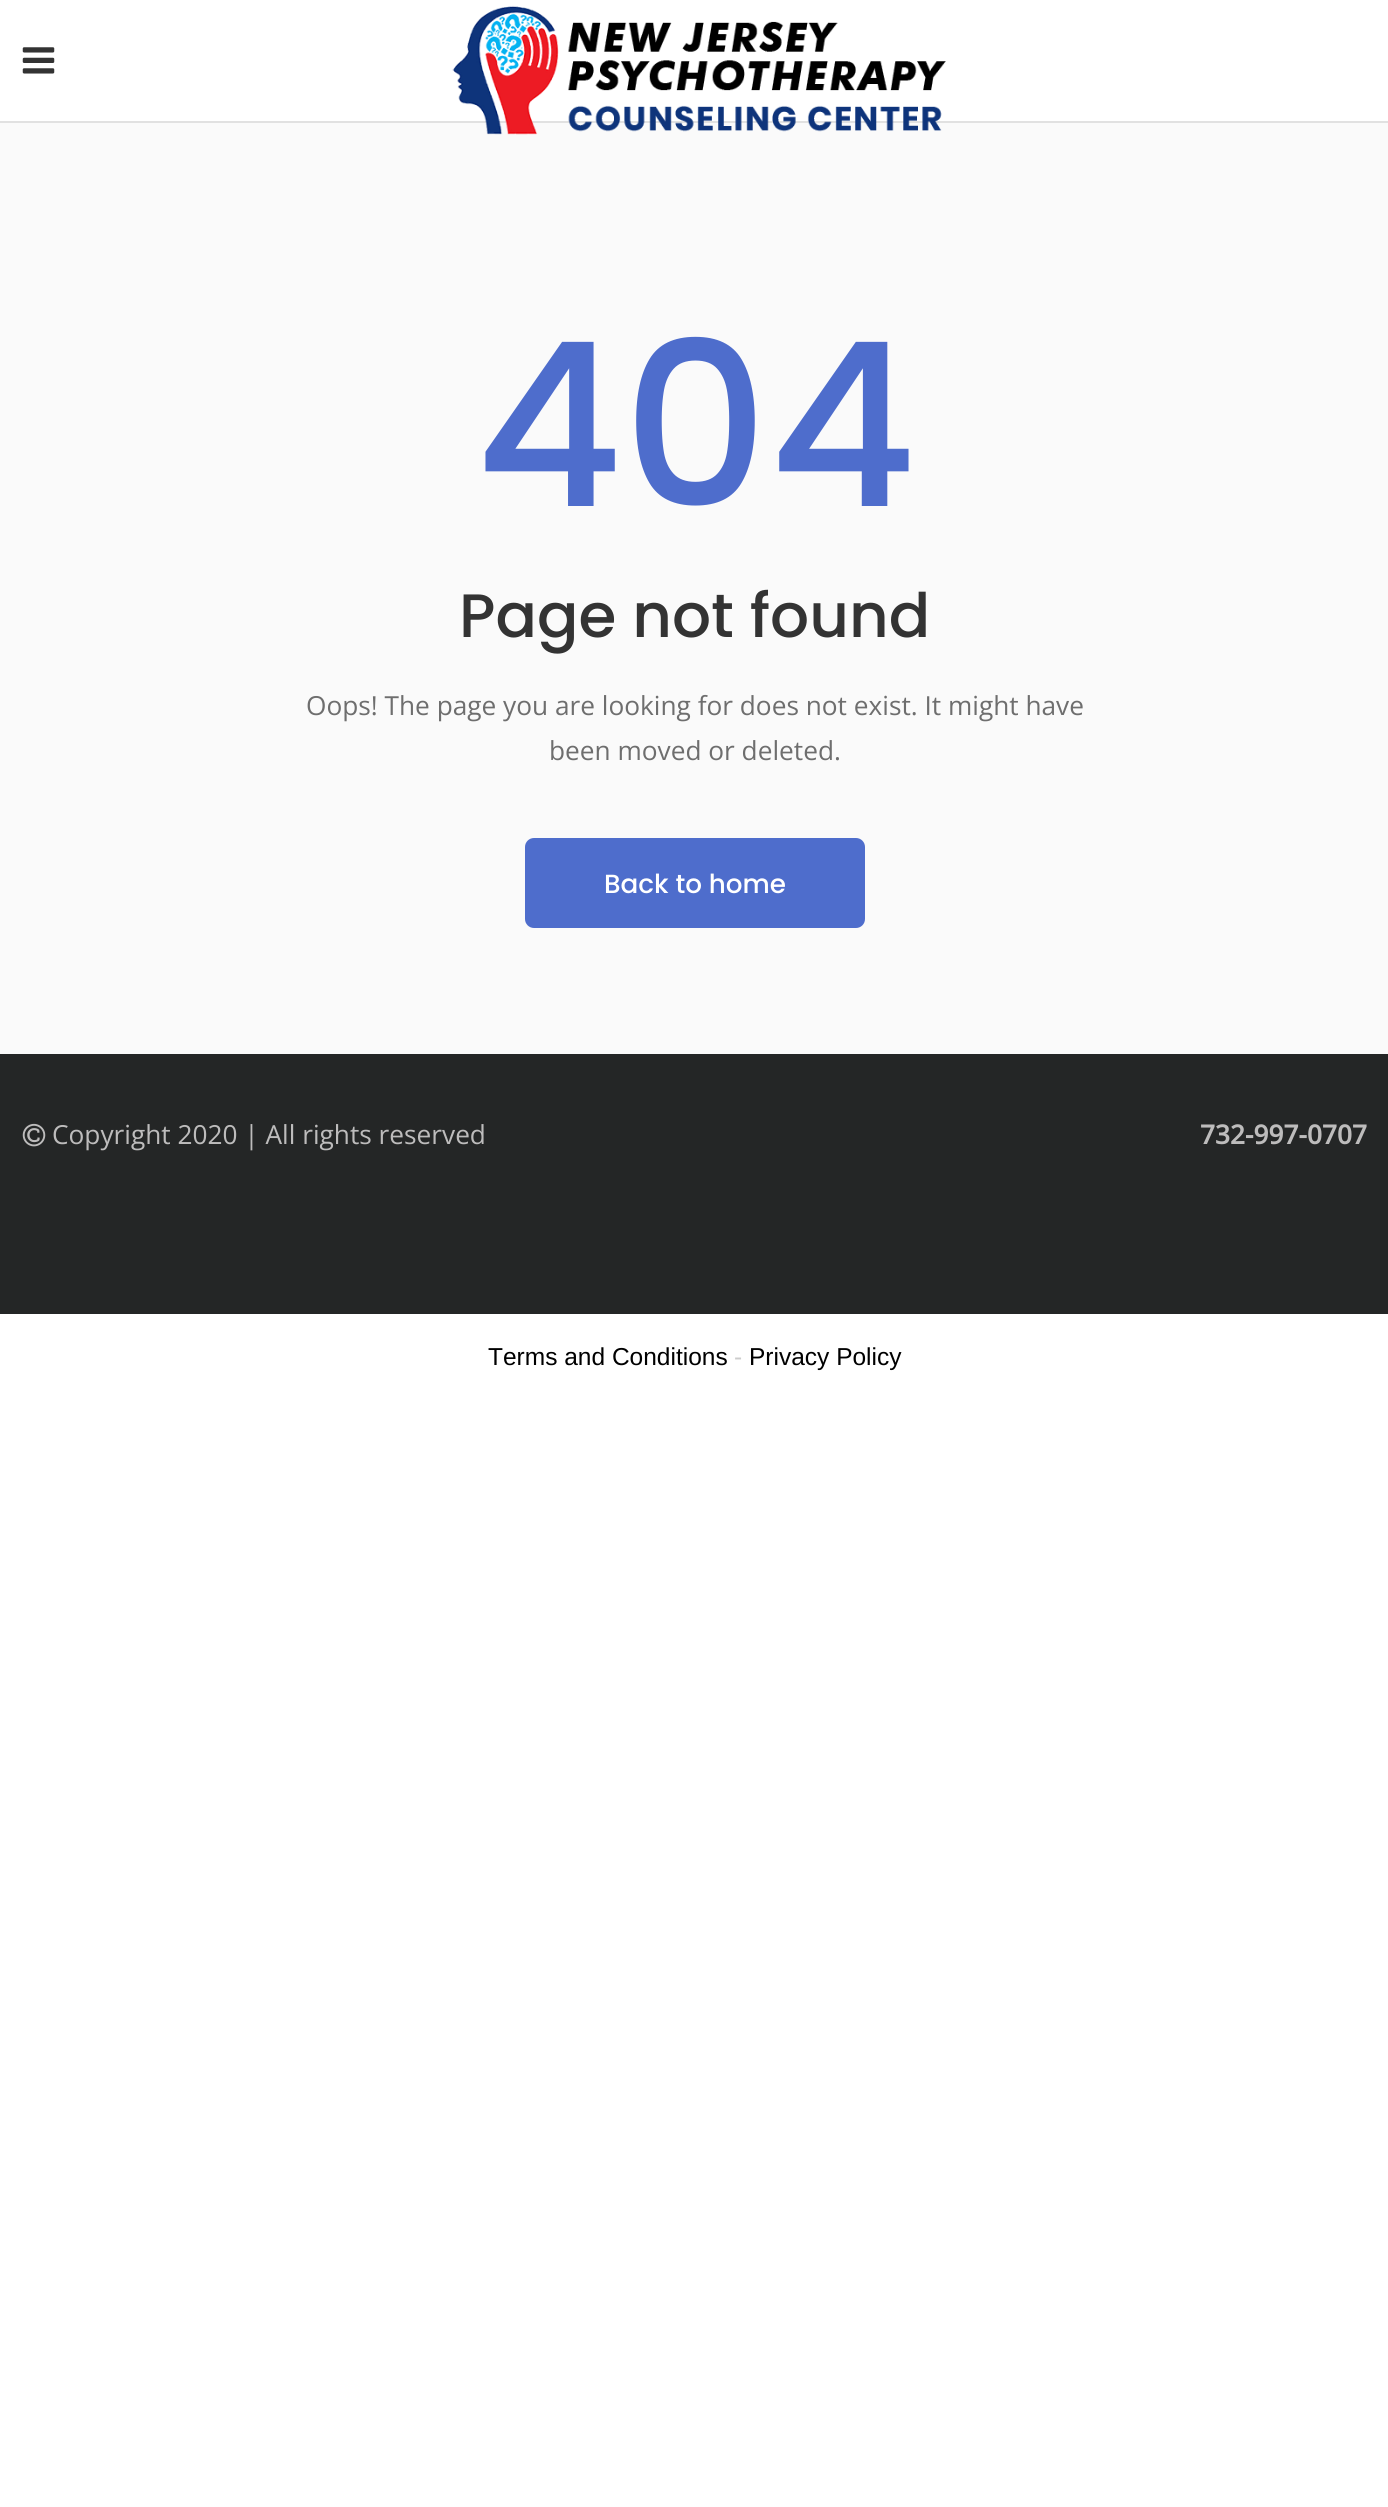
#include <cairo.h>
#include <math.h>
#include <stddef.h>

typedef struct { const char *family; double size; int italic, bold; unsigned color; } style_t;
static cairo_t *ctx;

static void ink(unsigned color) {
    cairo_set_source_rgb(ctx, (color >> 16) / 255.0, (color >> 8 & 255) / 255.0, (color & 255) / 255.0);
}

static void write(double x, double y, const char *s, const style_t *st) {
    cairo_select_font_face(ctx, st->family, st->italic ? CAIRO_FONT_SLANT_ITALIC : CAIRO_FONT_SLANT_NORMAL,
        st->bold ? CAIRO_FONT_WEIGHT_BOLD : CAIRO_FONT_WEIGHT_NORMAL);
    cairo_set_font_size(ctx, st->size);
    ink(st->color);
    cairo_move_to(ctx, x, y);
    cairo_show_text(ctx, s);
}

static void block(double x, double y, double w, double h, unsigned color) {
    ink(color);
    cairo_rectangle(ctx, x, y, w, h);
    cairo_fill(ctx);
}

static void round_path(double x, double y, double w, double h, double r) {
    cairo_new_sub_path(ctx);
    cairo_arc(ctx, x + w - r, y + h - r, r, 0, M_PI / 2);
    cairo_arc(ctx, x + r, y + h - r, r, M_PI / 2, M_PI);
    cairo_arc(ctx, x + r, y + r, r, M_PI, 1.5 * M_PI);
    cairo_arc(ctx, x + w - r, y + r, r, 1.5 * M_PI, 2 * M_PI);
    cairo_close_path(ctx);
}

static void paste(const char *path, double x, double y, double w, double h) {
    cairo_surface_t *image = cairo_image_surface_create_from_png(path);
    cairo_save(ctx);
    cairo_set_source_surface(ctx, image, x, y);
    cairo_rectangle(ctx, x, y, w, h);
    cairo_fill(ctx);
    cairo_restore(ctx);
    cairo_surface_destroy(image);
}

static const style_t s1 = {"Poppins Medium", 228, 0, 0, 0x4e6dcc};
static const style_t s2 = {"Poppins Medium", 61.25, 0, 0, 0x333333};
static const style_t s3 = {"Open Sans", 26.25, 0, 0, 0x6e6e6e};
static const style_t s4 = {"Poppins Medium", 26.25, 0, 0, 0xffffff};
static const style_t s5 = {"Open Sans", 26.25, 0, 0, 0xbdbcbc};
static const style_t s6 = {"Open Sans", 26.25, 0, 1, 0xbdbcbc};
static const style_t s7 = {"Liberation Sans", 24.5, 0, 0, 0x000000};
static const style_t s8 = {"Liberation Sans", 24.5, 0, 0, 0xcccccc};

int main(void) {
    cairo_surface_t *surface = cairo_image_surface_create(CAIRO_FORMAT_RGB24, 1388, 2507);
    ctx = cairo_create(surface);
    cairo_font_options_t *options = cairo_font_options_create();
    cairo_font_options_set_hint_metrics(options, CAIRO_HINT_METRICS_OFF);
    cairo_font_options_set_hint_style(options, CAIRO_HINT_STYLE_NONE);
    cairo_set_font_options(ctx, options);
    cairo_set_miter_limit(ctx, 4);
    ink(0xffffff);
    cairo_paint(ctx);
    block(0, 121, 1388, 2, 0xe1e1e1);
    paste("pic1.png", 22, 47, 33, 27);
    block(0, 123, 1388, 931, 0xfafafa);
    paste("pic2.png", 452, 5, 494, 130);
    write(475, 506, "404", &s1);
    write(459, 637, "Page not found", &s2);
    write(306, 715, "Oops! The page you are looking for does not exist. It might have", &s3);
    write(549, 760, "been moved or deleted.", &s3);
    ink(0x4e6dcc);
    round_path(525, 838, 340, 90, 9);
    cairo_fill(ctx);
    write(604, 893, "Back to home", &s4);
    block(0, 1054, 1388, 260, 0x242626);
    paste("pic3.png", 22, 1123, 24, 24);
    write(52, 1144, "Copyright 2020 | All rights reserved", &s5);
    write(1200, 1144, "732-997-0707", &s6);
    write(488, 1365, "Terms and Conditions", &s7);
    write(734, 1365, "-", &s8);
    write(749, 1365, "Privacy Policy", &s7);
    cairo_surface_write_to_png(surface, "screenshot.png");
    cairo_font_options_destroy(options);
    cairo_destroy(ctx);
    cairo_surface_destroy(surface);
    return 0;
}
